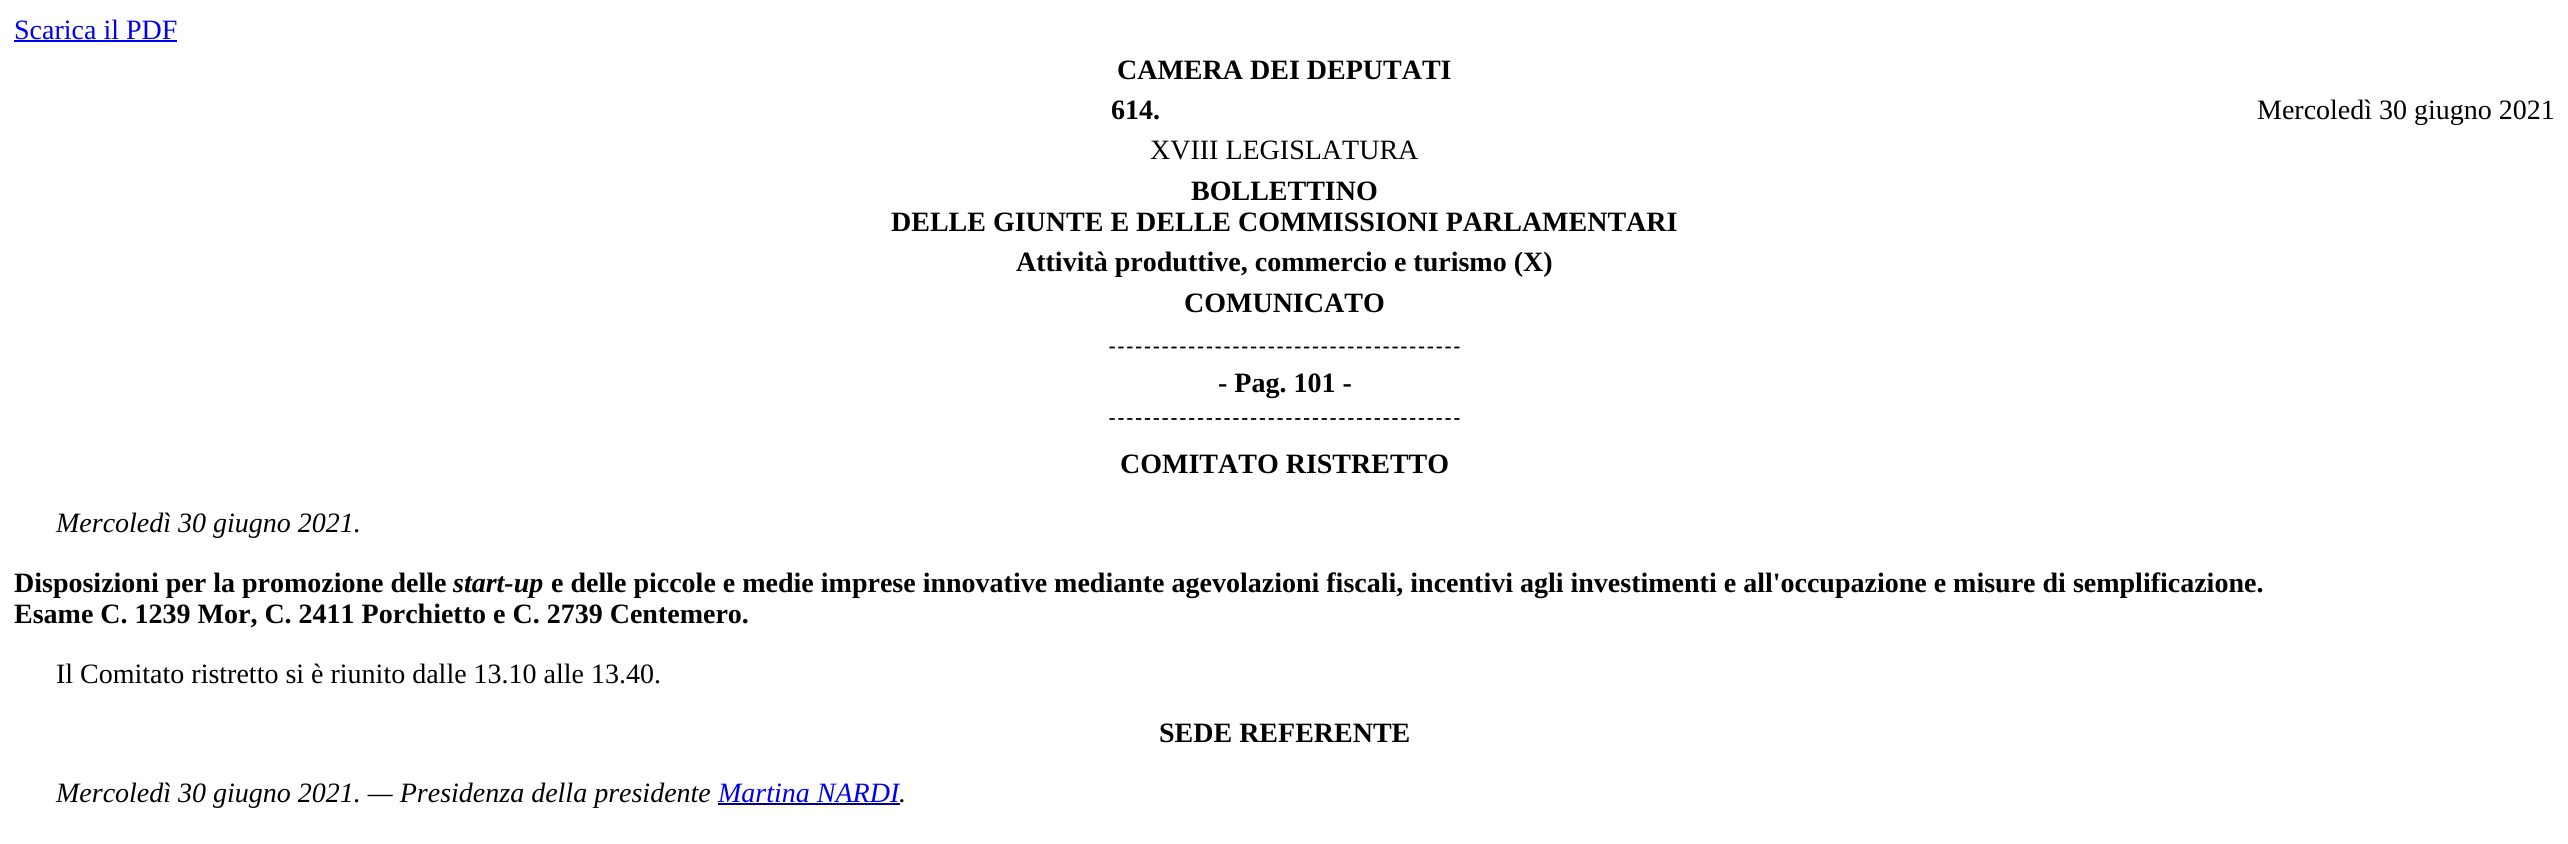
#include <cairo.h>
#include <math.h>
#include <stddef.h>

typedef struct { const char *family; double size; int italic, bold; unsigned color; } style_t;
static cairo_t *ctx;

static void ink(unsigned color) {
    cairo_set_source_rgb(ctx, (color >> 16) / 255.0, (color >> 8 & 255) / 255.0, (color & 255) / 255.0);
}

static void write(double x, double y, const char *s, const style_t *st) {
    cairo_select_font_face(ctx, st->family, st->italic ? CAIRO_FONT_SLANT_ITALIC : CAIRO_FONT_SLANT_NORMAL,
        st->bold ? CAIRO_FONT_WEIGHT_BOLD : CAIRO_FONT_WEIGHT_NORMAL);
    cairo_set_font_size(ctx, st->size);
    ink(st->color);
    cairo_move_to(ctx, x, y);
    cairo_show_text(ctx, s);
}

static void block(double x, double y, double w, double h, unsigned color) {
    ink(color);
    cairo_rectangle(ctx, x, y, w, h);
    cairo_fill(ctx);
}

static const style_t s1 = {"Liberation Serif", 28, 0, 0, 0x0000ee};
static const style_t s2 = {"Liberation Serif", 28, 0, 1, 0x000000};
static const style_t s3 = {"Liberation Serif", 28, 0, 0, 0x000000};
static const style_t s4 = {"Liberation Serif", 28, 1, 0, 0x000000};
static const style_t s5 = {"Liberation Serif", 28, 1, 1, 0x000000};
static const style_t s6 = {"Liberation Serif", 28, 1, 0, 0x0000ee};

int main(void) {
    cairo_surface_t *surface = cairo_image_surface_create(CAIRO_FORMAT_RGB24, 2568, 844);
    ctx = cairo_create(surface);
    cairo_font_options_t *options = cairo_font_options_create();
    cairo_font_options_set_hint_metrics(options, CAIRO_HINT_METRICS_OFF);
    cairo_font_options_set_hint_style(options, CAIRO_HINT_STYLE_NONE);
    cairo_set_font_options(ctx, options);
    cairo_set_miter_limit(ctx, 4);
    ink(0xffffff);
    cairo_paint(ctx);
    write(14, 39, "Scarica il PDF", &s1);
    block(14, 40, 163, 2, 0x0000ee);
    write(1117, 79, "CAMERA DEI DEPUTATI", &s2);
    write(1111, 119, "614.", &s2);
    write(2257, 119, "Mercoledì 30 giugno 2021", &s3);
    write(1150, 159, "XVIII LEGISLATURA", &s3);
    write(1191, 200, "BOLLETTINO", &s2);
    write(891, 231, "DELLE GIUNTE E DELLE COMMISSIONI PARLAMENTARI", &s2);
    write(1016, 271, "Attività produttive, commercio e turismo (X)", &s2);
    write(1184, 312, "COMUNICATO", &s2);
    cairo_new_path(ctx);
    cairo_move_to(ctx, 1109.5, 347.5);
    cairo_line_to(ctx, 1459.5, 347.5);
    cairo_set_line_width(ctx, 1.8);
    cairo_set_dash(ctx, (double[]){5.25, 3.59}, 2, 0);
    cairo_stroke(ctx);
    cairo_new_path(ctx);
    cairo_move_to(ctx, 1109.5, 419);
    cairo_line_to(ctx, 1459.5, 419);
    cairo_stroke(ctx);
    write(1218, 392, "- Pag. 101 -", &s2);
    write(1120, 473, "COMITATO RISTRETTO", &s2);
    write(56, 532, "Mercoledì 30 giugno 2021.", &s4);
    write(14, 592, "Disposizioni per la promozione delle", &s2);
    write(453, 592, "start-up", &s5);
    write(551, 592, "e delle piccole e medie imprese innovative mediante agevolazioni fiscali, incentivi agli investimenti e all'occupazione e misure di semplificazione.", &s2);
    write(14, 623, "Esame C. 1239 Mor, C. 2411 Porchietto e C. 2739 Centemero.", &s2);
    write(56, 683, "Il Comitato ristretto si è riunito dalle 13.10 alle 13.40.", &s3);
    write(1159, 742, "SEDE REFERENTE", &s2);
    write(56, 802, "Mercoledì 30 giugno 2021. — Presidenza della presidente", &s4);
    write(718, 802, "Martina NARDI", &s6);
    write(899, 802, ".", &s4);
    block(718, 803, 182, 2, 0x0000ee);
    cairo_new_path(ctx);
    cairo_move_to(ctx, 718, 804);
    cairo_line_to(ctx, 899, 804);
    ink(0x000000);
    cairo_set_dash(ctx, (double[]){1.75, 1.75}, 2, 0);
    cairo_stroke(ctx);
    cairo_surface_write_to_png(surface, "screenshot.png");
    cairo_font_options_destroy(options);
    cairo_destroy(ctx);
    cairo_surface_destroy(surface);
    return 0;
}
